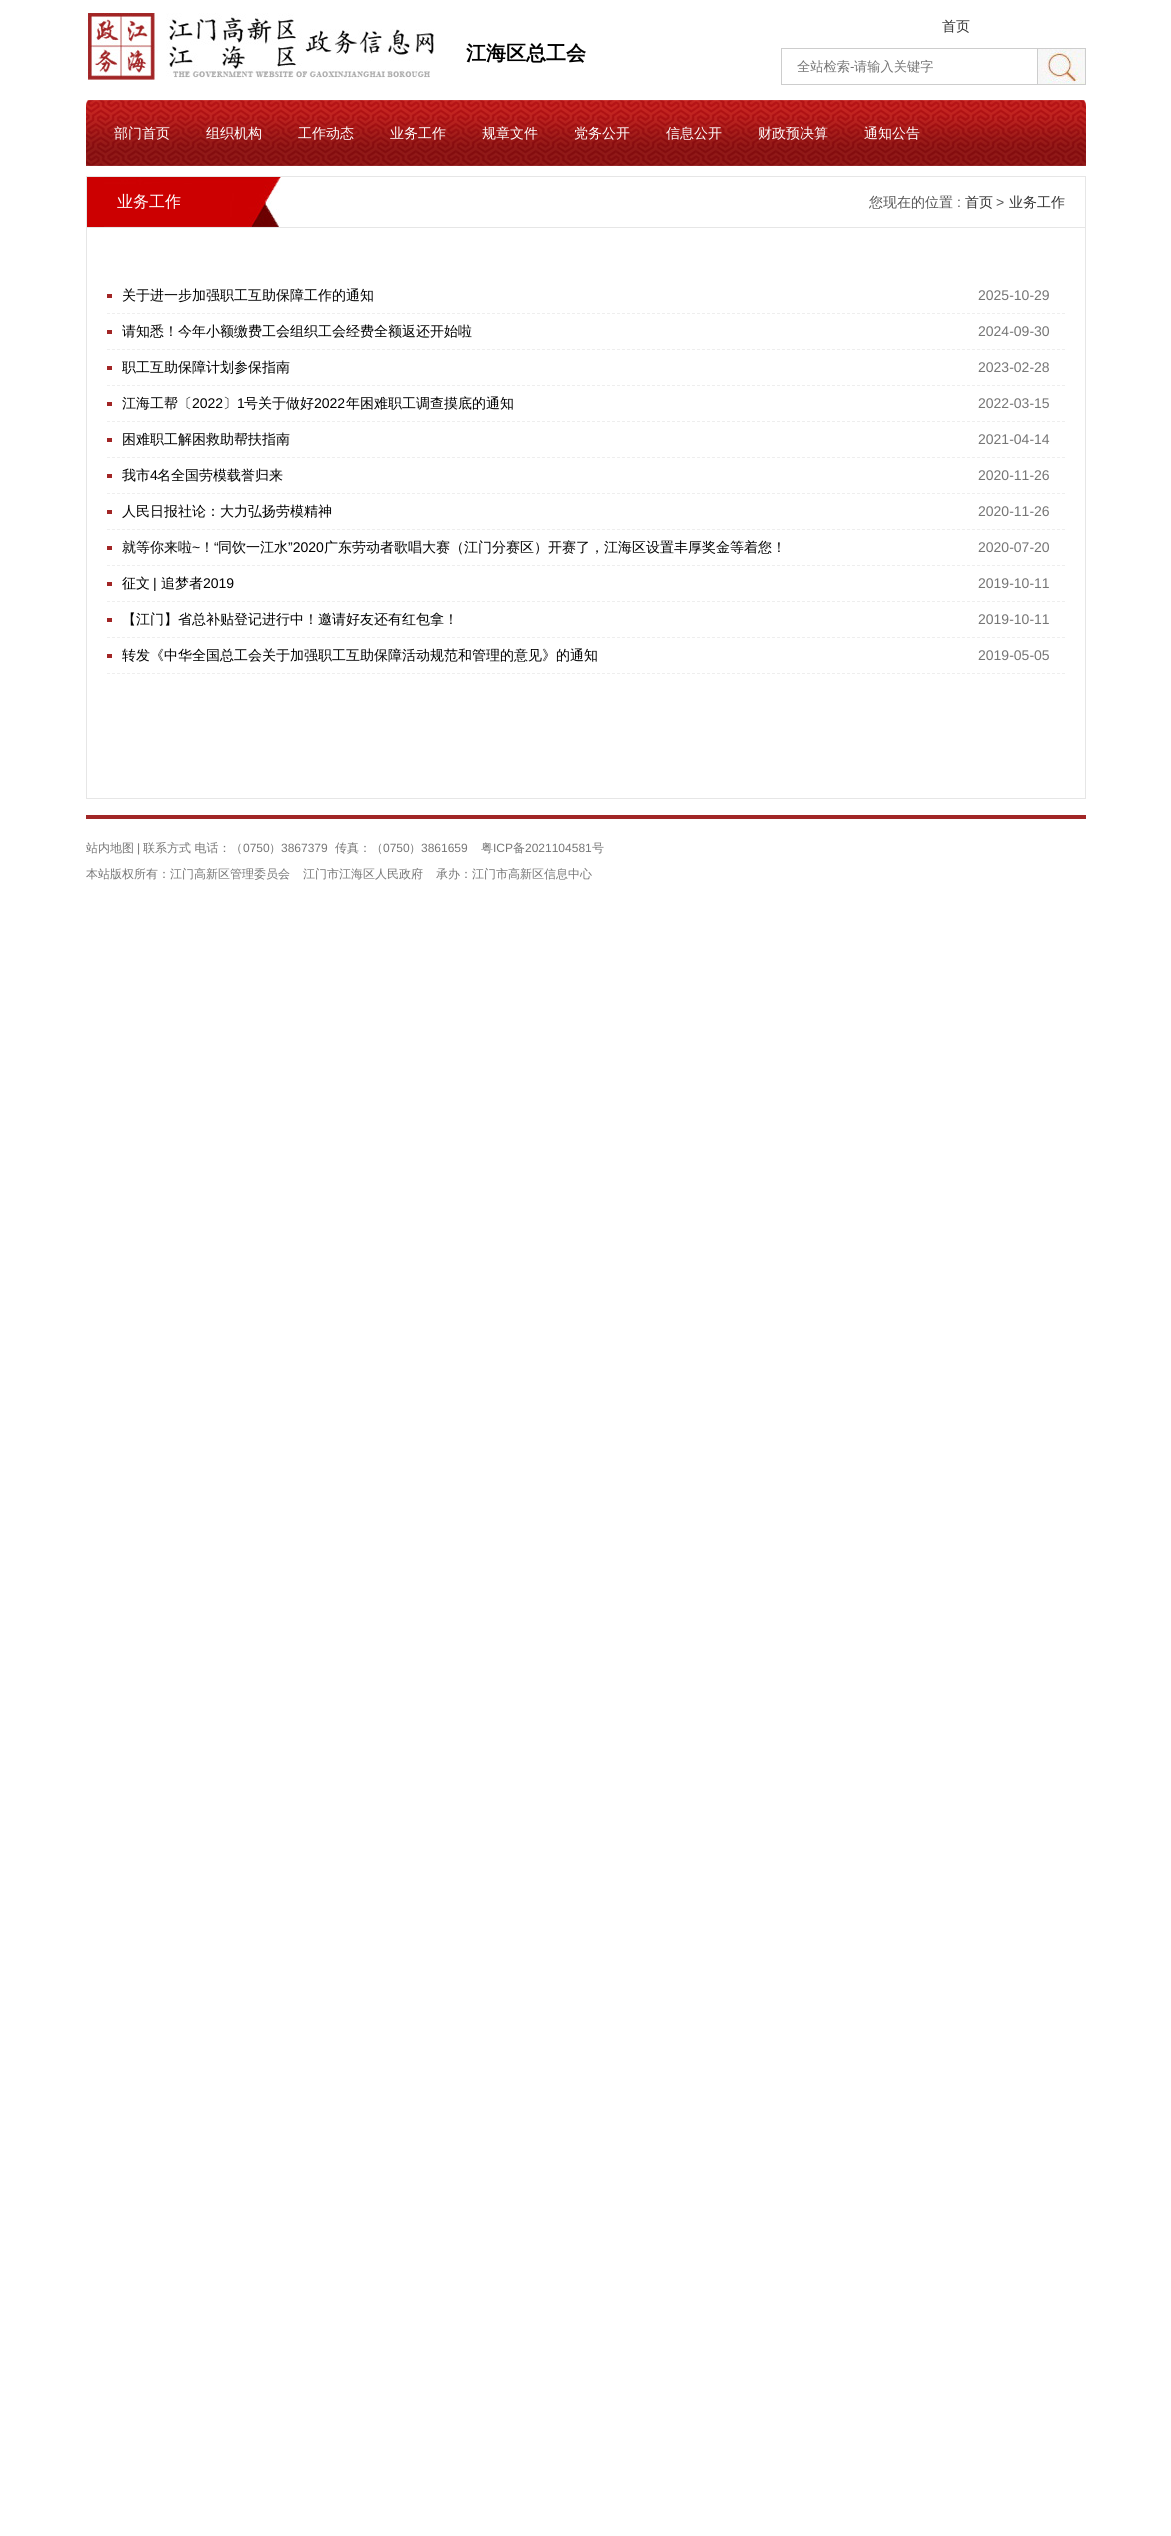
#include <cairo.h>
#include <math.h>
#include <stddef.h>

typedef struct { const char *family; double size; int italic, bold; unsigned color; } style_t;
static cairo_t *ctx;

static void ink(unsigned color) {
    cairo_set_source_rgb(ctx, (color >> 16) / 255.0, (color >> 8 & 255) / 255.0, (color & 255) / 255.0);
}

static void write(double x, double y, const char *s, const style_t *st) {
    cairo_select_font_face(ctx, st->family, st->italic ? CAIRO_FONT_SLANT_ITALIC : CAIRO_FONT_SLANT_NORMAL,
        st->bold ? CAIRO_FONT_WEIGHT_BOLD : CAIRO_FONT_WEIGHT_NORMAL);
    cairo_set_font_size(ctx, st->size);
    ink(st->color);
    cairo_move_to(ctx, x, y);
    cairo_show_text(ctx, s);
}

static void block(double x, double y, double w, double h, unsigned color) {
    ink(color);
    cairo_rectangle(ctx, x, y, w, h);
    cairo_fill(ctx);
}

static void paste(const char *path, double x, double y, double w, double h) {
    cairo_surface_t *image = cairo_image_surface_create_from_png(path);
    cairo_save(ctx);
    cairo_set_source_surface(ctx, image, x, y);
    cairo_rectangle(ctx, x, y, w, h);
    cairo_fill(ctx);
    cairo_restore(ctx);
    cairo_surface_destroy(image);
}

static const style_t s1 = {"WenQuanYi Zen Hei Medium", 14, 0, 0, 0x333333};
static const style_t s2 = {"WenQuanYi Zen Hei Medium", 13.25, 0, 0, 0x757575};
static const style_t s3 = {"Liberation Sans", 13.25, 0, 0, 0x757575};
static const style_t s4 = {"WenQuanYi Zen Hei", 20, 0, 1, 0x000000};
static const style_t s5 = {"WenQuanYi Zen Hei Medium", 14, 0, 0, 0xffffff};
static const style_t s6 = {"WenQuanYi Zen Hei Medium", 16, 0, 0, 0xffffff};
static const style_t s7 = {"WenQuanYi Zen Hei Medium", 14, 0, 0, 0x555555};
static const style_t s8 = {"Liberation Sans", 14, 0, 0, 0x555555};
static const style_t s9 = {"WenQuanYi Zen Hei Medium", 14, 0, 0, 0x000000};
static const style_t s10 = {"Liberation Sans", 14, 0, 0, 0x757575};
static const style_t s11 = {"Liberation Sans", 14, 0, 0, 0x000000};
static const style_t s12 = {"WenQuanYi Zen Hei Medium", 12, 0, 0, 0x757575};
static const style_t s13 = {"Liberation Sans", 12, 0, 0, 0x757575};

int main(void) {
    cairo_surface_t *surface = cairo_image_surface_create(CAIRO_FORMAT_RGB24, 1171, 2536);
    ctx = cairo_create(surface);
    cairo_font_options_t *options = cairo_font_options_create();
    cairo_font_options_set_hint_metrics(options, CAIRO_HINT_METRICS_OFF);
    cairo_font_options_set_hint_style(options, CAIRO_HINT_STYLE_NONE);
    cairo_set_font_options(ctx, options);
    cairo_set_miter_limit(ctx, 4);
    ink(0xffffff);
    cairo_paint(ctx);
    paste("pic1.png", 86, 13, 348, 67);
    write(942, 31, "首页", &s1);
    block(781, 48, 256, 1, 0xcdcdcd);
    block(781, 84, 256, 1, 0xcdcdcd);
    block(781, 48, 1, 37, 0xcdcdcd);
    write(797, 71, "全站检索", &s2);
    write(850, 71, "-", &s3);
    write(854, 71, "请输入关键字", &s2);
    paste("pic2.png", 1038, 49, 47, 35);
    cairo_rectangle(ctx, 1037.5, 48.5, 48, 36);
    ink(0xcdcdcd);
    cairo_set_line_width(ctx, 1);
    cairo_stroke(ctx);
    paste("pic3.png", 86, 100, 1000, 66);
    write(466, 60, "江海区总工会", &s4);
    write(114, 138, "部门首页", &s5);
    write(206, 138, "组织机构", &s5);
    write(298, 138, "工作动态", &s5);
    write(390, 138, "业务工作", &s5);
    write(482, 138, "规章文件", &s5);
    write(574, 138, "党务公开", &s5);
    write(666, 138, "信息公开", &s5);
    write(758, 138, "财政预决算", &s5);
    write(864, 138, "通知公告", &s5);
    cairo_rectangle(ctx, 86.5, 176.5, 999, 622);
    ink(0xe6e6e6);
    cairo_stroke(ctx);
    block(87, 227, 998, 1, 0xe6e6e6);
    block(87, 177, 17, 50, 0xcc0001);
    paste("pic4.png", 104, 177, 177, 50);
    write(117, 207, "业务工作", &s6);
    write(869, 207, "您现在的位置", &s7);
    write(957, 207, ":", &s8);
    write(965, 207, "首页", &s1);
    write(996, 207, ">", &s8);
    write(1009, 207, "业务工作", &s1);
    block(107, 294, 5, 4, 0xa12525);
    cairo_new_path(ctx);
    cairo_move_to(ctx, 107, 313.5);
    cairo_line_to(ctx, 1065, 313.5);
    ink(0xeeeeee);
    cairo_set_dash(ctx, (double[]){3, 2}, 2, 0);
    cairo_stroke(ctx);
    write(122, 300, "关于进一步加强职工互助保障工作的通知", &s9);
    write(978, 300, "2025-10-29", &s10);
    block(107, 330, 5, 4, 0xa12525);
    cairo_new_path(ctx);
    cairo_move_to(ctx, 107, 349.5);
    cairo_line_to(ctx, 1065, 349.5);
    ink(0xeeeeee);
    cairo_stroke(ctx);
    write(122, 336, "请知悉！今年小额缴费工会组织工会经费全额返还开始啦", &s9);
    write(978, 336, "2024-09-30", &s10);
    block(107, 366, 5, 4, 0xa12525);
    cairo_new_path(ctx);
    cairo_move_to(ctx, 107, 385.5);
    cairo_line_to(ctx, 1065, 385.5);
    ink(0xeeeeee);
    cairo_stroke(ctx);
    write(122, 372, "职工互助保障计划参保指南", &s9);
    write(978, 372, "2023-02-28", &s10);
    block(107, 402, 5, 4, 0xa12525);
    cairo_new_path(ctx);
    cairo_move_to(ctx, 107, 421.5);
    cairo_line_to(ctx, 1065, 421.5);
    ink(0xeeeeee);
    cairo_stroke(ctx);
    write(122, 408, "江海工帮〔", &s9);
    write(192, 408, "2022", &s11);
    write(223, 408, "〕", &s9);
    write(237, 408, "1", &s11);
    write(244, 408, "号关于做好", &s9);
    write(314, 408, "2022", &s11);
    write(346, 408, "年困难职工调查摸底的通知", &s9);
    write(978, 408, "2022-03-15", &s10);
    block(107, 438, 5, 4, 0xa12525);
    cairo_new_path(ctx);
    cairo_move_to(ctx, 107, 457.5);
    cairo_line_to(ctx, 1065, 457.5);
    ink(0xeeeeee);
    cairo_stroke(ctx);
    write(122, 444, "困难职工解困救助帮扶指南", &s9);
    write(978, 444, "2021-04-14", &s10);
    block(107, 474, 5, 4, 0xa12525);
    cairo_new_path(ctx);
    cairo_move_to(ctx, 107, 493.5);
    cairo_line_to(ctx, 1065, 493.5);
    ink(0xeeeeee);
    cairo_stroke(ctx);
    write(122, 480, "我市", &s9);
    write(150, 480, "4", &s11);
    write(157, 480, "名全国劳模载誉归来", &s9);
    write(978, 480, "2020-11-26", &s10);
    block(107, 510, 5, 4, 0xa12525);
    cairo_new_path(ctx);
    cairo_move_to(ctx, 107, 529.5);
    cairo_line_to(ctx, 1065, 529.5);
    ink(0xeeeeee);
    cairo_stroke(ctx);
    write(122, 516, "人民日报社论：大力弘扬劳模精神", &s9);
    write(978, 516, "2020-11-26", &s10);
    block(107, 546, 5, 4, 0xa12525);
    cairo_new_path(ctx);
    cairo_move_to(ctx, 107, 565.5);
    cairo_line_to(ctx, 1065, 565.5);
    ink(0xeeeeee);
    cairo_stroke(ctx);
    write(122, 552, "就等你来啦", &s9);
    write(192, 552, "~", &s11);
    write(200, 552, "！", &s9);
    write(214, 552, "“", &s11);
    write(218, 552, "同饮一江水", &s9);
    write(288, 552, "”2020", &s11);
    write(324, 552, "广东劳动者歌唱大赛（江门分赛区）开赛了，江海区设置丰厚奖金等着您！", &s9);
    write(978, 552, "2020-07-20", &s10);
    block(107, 582, 5, 4, 0xa12525);
    cairo_new_path(ctx);
    cairo_move_to(ctx, 107, 601.5);
    cairo_line_to(ctx, 1065, 601.5);
    ink(0xeeeeee);
    cairo_stroke(ctx);
    write(122, 588, "征文", &s9);
    write(153, 588, "|", &s11);
    write(161, 588, "追梦者", &s9);
    write(203, 588, "2019", &s11);
    write(978, 588, "2019-10-11", &s10);
    block(107, 618, 5, 4, 0xa12525);
    cairo_new_path(ctx);
    cairo_move_to(ctx, 107, 637.5);
    cairo_line_to(ctx, 1065, 637.5);
    ink(0xeeeeee);
    cairo_stroke(ctx);
    write(122, 624, "【江门】省总补贴登记进行中！邀请好友还有红包拿！", &s9);
    write(978, 624, "2019-10-11", &s10);
    block(107, 654, 5, 4, 0xa12525);
    cairo_new_path(ctx);
    cairo_move_to(ctx, 107, 673.5);
    cairo_line_to(ctx, 1065, 673.5);
    ink(0xeeeeee);
    cairo_stroke(ctx);
    write(122, 660, "转发《中华全国总工会关于加强职工互助保障活动规范和管理的意见》的通知", &s9);
    write(978, 660, "2019-05-05", &s10);
    block(86, 815, 1000, 4, 0xa12626);
    write(86, 852, "站内地图", &s12);
    write(137, 852, "|", &s13);
    write(143, 852, "联系方式 电话：（", &s12);
    write(243, 852, "0750", &s13);
    write(269, 852, "）", &s12);
    write(281, 852, "3867379", &s13);
    write(335, 852, "传真：（", &s12);
    write(383, 852, "0750", &s13);
    write(409, 852, "）", &s12);
    write(421, 852, "3861659", &s13);
    write(481, 852, "粤", &s12);
    write(493, 852, "ICP", &s13);
    write(513, 852, "备", &s12);
    write(525, 852, "2021104581", &s13);
    write(592, 852, "号", &s12);
    write(86, 878, "本站版权所有：江门高新区管理委员会", &s12);
    write(303, 878, "江门市江海区人民政府", &s12);
    write(436, 878, "承办：江门市高新区信息中心", &s12);
    cairo_surface_write_to_png(surface, "screenshot.png");
    cairo_font_options_destroy(options);
    cairo_destroy(ctx);
    cairo_surface_destroy(surface);
    return 0;
}
